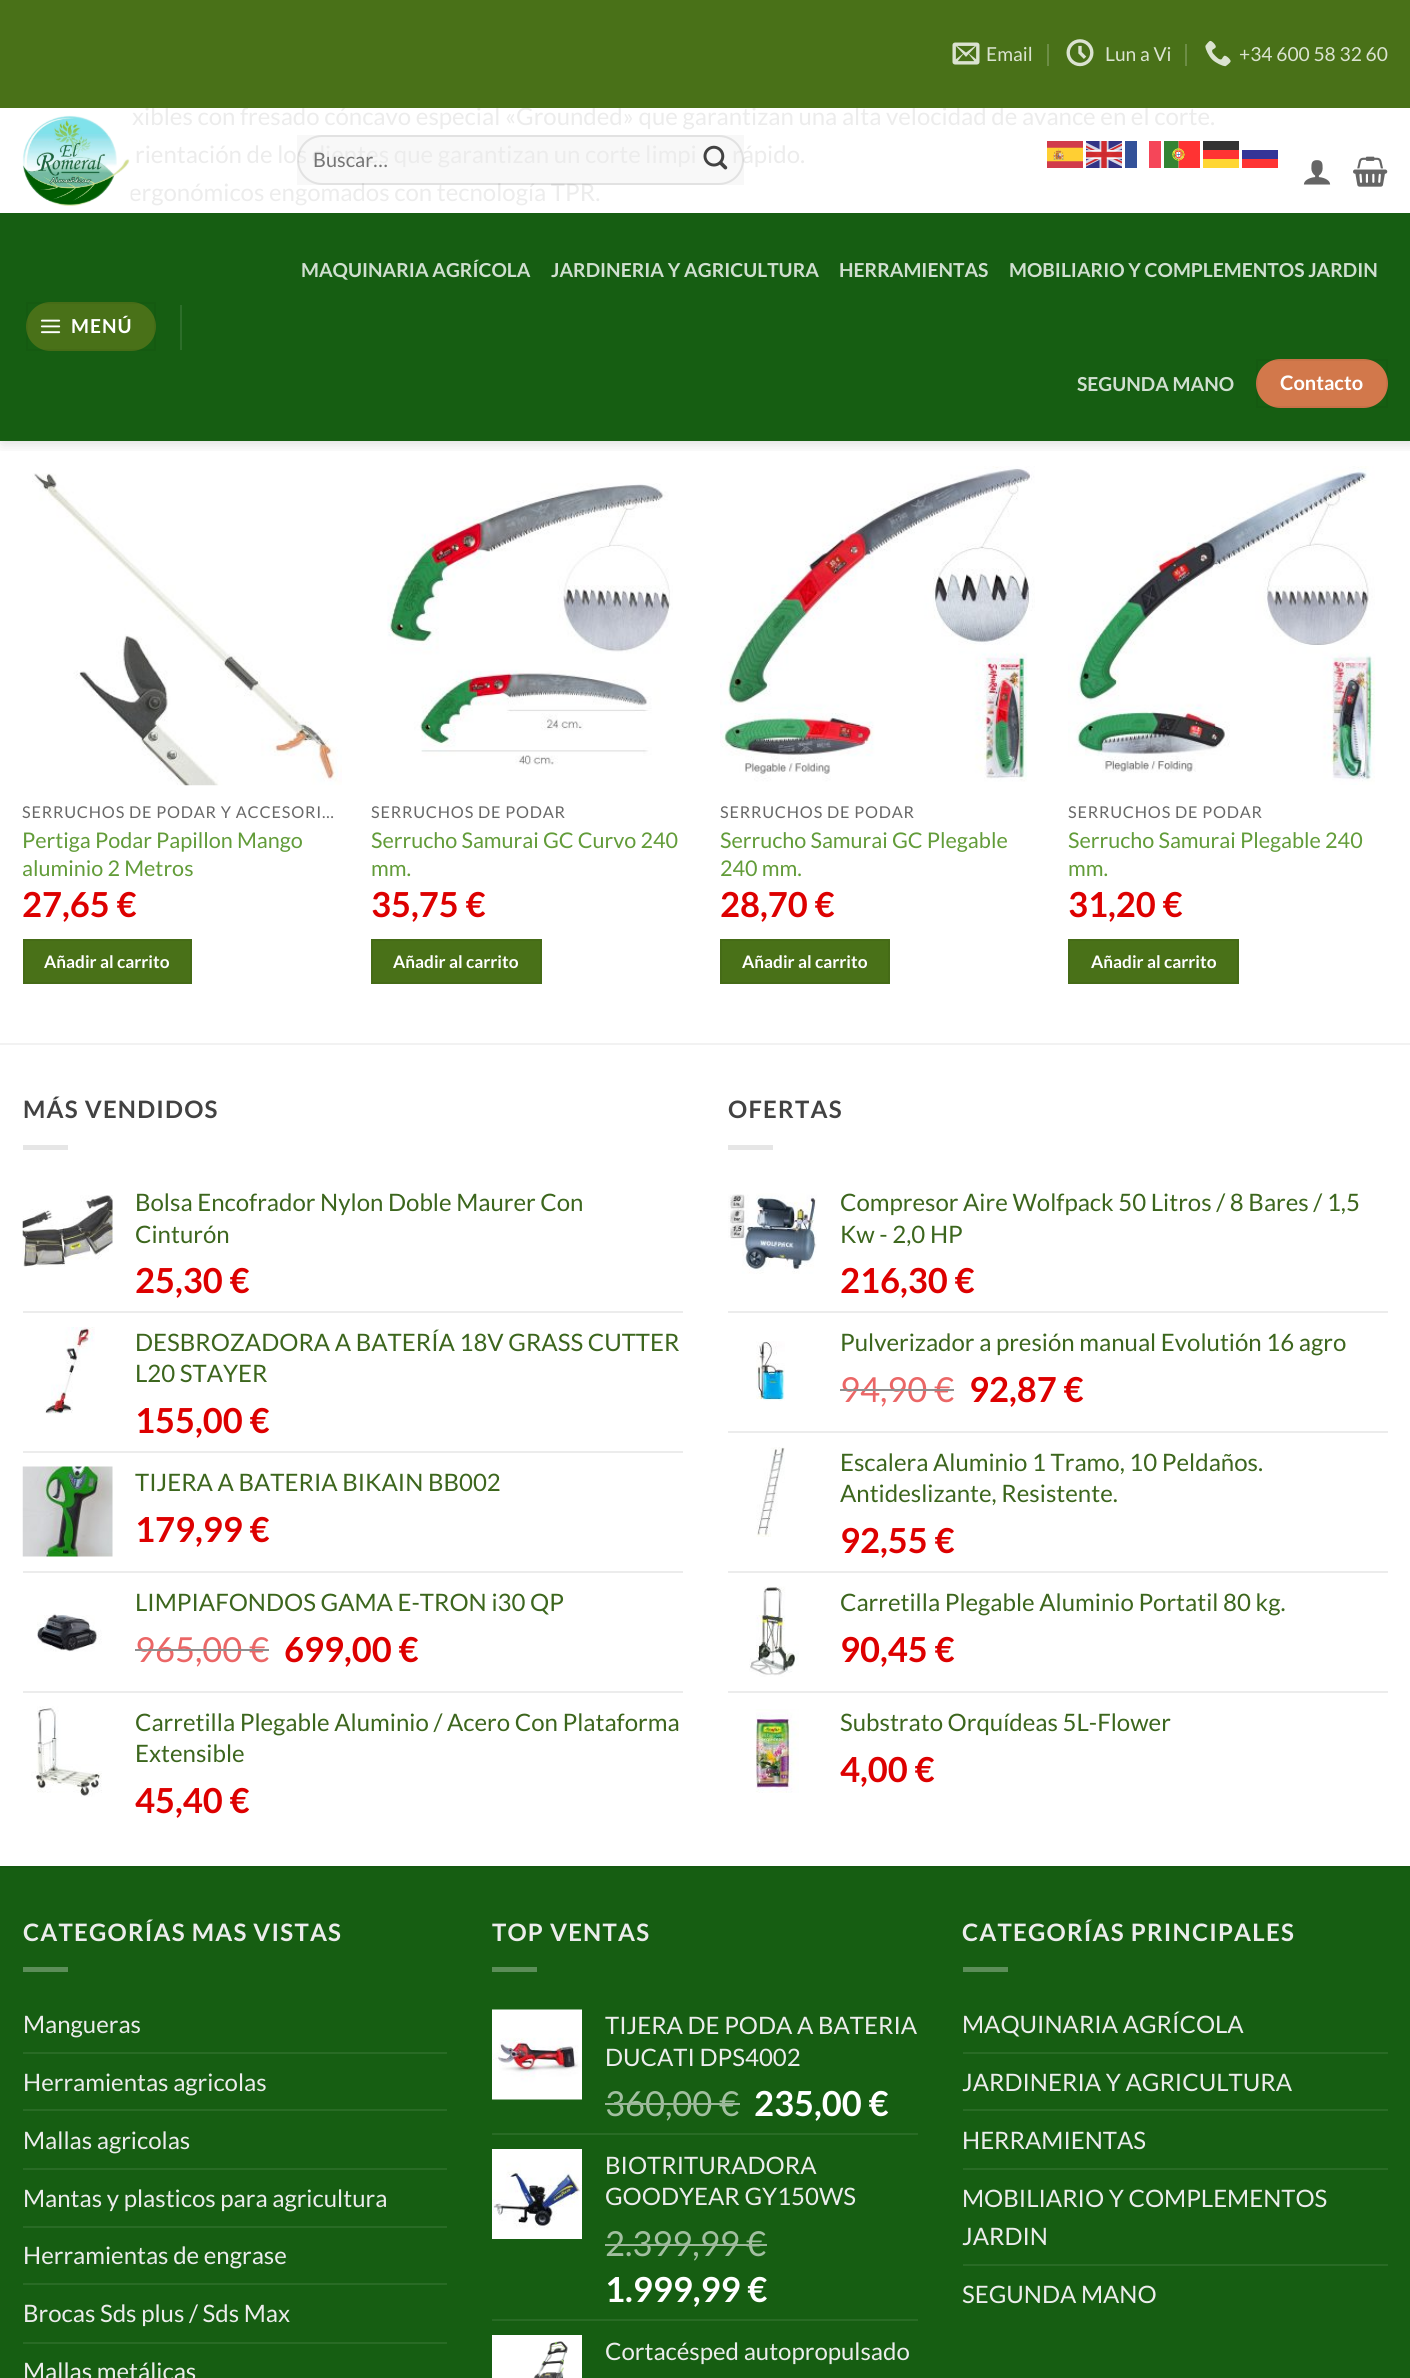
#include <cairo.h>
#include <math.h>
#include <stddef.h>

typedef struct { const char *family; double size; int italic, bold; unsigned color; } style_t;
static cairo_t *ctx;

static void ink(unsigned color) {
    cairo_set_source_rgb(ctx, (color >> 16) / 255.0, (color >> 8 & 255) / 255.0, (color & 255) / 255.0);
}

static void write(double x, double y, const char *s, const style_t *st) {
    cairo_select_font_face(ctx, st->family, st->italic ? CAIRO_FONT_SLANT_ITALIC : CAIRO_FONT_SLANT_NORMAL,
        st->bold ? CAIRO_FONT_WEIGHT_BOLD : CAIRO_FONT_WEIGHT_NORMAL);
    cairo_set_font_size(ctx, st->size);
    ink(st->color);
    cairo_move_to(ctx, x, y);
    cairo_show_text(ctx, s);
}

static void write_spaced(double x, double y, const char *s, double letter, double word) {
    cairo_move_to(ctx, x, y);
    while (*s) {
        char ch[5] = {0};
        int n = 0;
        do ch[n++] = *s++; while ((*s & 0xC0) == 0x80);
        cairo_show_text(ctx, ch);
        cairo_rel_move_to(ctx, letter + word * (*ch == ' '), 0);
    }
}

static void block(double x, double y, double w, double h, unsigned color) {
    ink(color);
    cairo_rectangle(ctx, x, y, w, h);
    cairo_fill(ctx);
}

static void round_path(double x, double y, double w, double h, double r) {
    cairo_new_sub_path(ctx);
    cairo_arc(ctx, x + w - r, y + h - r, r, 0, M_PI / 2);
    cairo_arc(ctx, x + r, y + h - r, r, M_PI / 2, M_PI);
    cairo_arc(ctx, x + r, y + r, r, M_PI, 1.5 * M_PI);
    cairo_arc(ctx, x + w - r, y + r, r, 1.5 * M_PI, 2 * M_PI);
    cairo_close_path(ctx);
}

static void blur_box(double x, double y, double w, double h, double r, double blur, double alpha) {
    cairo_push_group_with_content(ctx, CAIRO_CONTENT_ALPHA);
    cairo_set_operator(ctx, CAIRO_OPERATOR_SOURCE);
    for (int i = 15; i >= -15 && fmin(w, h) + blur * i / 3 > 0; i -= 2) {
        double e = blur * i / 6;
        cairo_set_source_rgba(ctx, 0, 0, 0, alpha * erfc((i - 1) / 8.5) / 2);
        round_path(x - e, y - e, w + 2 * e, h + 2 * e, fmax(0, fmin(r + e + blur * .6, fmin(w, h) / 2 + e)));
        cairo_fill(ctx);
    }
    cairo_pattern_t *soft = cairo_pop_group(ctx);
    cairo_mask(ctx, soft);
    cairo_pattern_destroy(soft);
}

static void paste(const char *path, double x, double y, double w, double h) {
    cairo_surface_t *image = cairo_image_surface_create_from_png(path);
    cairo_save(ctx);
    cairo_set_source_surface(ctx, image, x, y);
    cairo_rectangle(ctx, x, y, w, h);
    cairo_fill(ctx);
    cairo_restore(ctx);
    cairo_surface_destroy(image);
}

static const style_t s1 = {"Lato", 24, 0, 0, 0xececec};
static const style_t s2 = {"Lato", 19.25, 0, 0, 0xdbe3d1};
static const style_t s3 = {"Lato", 20, 0, 0, 0x757575};
static const style_t s4 = {"Lato", 19.25, 0, 1, 0xd0dfd0};
static const style_t s5 = {"Lato", 20, 0, 1, 0xffffff};
static const style_t s6 = {"Lato", 21.6, 0, 0, 0x629c39};
static const style_t s7 = {"Lato", 34.5, 0, 1, 0xdd0000};
static const style_t s8 = {"Lato", 17.25, 0, 1, 0xffffff};
static const style_t s9 = {"Lato", 24, 0, 0, 0x3c661d};
static const style_t s10 = {"Lato", 34.5, 0, 0, 0xeb6666};
static const style_t s11 = {"Lato", 34.5, 0, 0, 0xa2bfa0};
static const style_t s12 = {"Lato", 34.5, 0, 1, 0xffffff};

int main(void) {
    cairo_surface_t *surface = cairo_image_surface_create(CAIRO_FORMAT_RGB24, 1410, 2378);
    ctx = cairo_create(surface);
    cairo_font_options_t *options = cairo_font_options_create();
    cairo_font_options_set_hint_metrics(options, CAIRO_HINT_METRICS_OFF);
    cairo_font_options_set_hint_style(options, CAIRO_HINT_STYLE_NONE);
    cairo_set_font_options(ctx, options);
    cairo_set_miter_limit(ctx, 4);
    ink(0xffffff);
    cairo_paint(ctx);
    paste("pic14.png", 720, 466, 315, 316);
    paste("pic15.png", 1068, 466, 308, 319);
    cairo_save(ctx);
    cairo_rectangle(ctx, 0, 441, 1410, 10);
    cairo_clip(ctx);
    ink(0x000000);
    blur_box(2, 2, 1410, 441, 0, 7.5, 0.15);
    cairo_restore(ctx);
    write(132, 125, "xibles con fresado cóncavo especial «Grounded» que garantizan una alta velocidad de avance en el corte.", &s1);
    block(0, 0, 1410, 108, 0x497118);
    paste("pic1.png", 952, 42, 28, 23);
    write(986, 61, "Email", &s2);
    block(1047, 44, 2, 22, 0x6d8d46);
    paste("pic2.png", 1066, 39, 28, 28);
    write(1105, 61, "Lun a Vi", &s2);
    block(1185, 44, 2, 22, 0x6d8d46);
    paste("pic3.png", 1205, 40, 26, 27);
    write(1239, 61, "+34 600 58 32 60", &s2);
    write(129, 201, "ergonómicos engomados con tecnología TPR.", &s1);
    paste("pic4.png", 22, 115, 109, 91);
    cairo_set_source_rgba(ctx, 0, 0, 0, 0.03);
    cairo_rectangle(ctx, 297, 135, 447, 50);
    cairo_fill(ctx);
    write(135, 163, "rientación de los dientes que garantizan un corte limpi", &s1);
    write(732, 163, "rápido.", &s1);
    round_path(298, 136, 445, 48, 24);
    cairo_set_source_rgba(ctx, 0, 0, 0, 0.09);
    cairo_stroke(ctx);
    write(313, 167, "Buscar…", &s3);
    paste("pic5.png", 703, 145, 25, 25);
    paste("pic6.png", 1047, 141, 36, 27);
    paste("pic7.png", 1086, 141, 36, 27);
    block(1125, 141, 12, 27, 0x335199);
    block(1149, 141, 12, 27, 0xf54659);
    paste("pic8.png", 1164, 141, 36, 27);
    block(1203, 141, 36, 9, 0x333333);
    block(1203, 150, 36, 9, 0xff3333);
    block(1242, 150, 36, 9, 0x343498);
    block(1203, 159, 36, 9, 0xffd633);
    block(1242, 159, 36, 9, 0xfe3434);
    paste("pic9.png", 1303, 160, 28, 25);
    paste("pic10.png", 1353, 156, 35, 31);
    block(0, 213, 1410, 228, 0x165e12);
    ink(0x497118);
    round_path(26, 302, 130, 49, 24.5);
    cairo_fill(ctx);
    cairo_rectangle(ctx, 27, 303, 128, 47);
    cairo_set_source_rgba(ctx, 0, 0, 0, 0.05);
    cairo_stroke(ctx);
    paste("pic11.png", 40, 319, 21, 15);
    cairo_select_font_face(ctx, "Lato", CAIRO_FONT_SLANT_NORMAL, CAIRO_FONT_WEIGHT_BOLD);
    cairo_set_font_size(ctx, 19.25);
    ink(0xffffff);
    write_spaced(71, 333, "MENÚ", 1, 0);
    block(180, 305, 2, 45, 0x2d6e2a);
    write(301, 277, "MAQUINARIA AGRÍCOLA", &s4);
    write(551, 277, "JARDINERIA Y AGRICULTURA", &s4);
    write(839, 277, "HERRAMIENTAS", &s4);
    write(1009, 277, "MOBILIARIO Y COMPLEMENTOS JARDIN", &s4);
    write(1077, 391, "SEGUNDA MANO", &s4);
    ink(0xd2784b);
    round_path(1256, 359, 132, 49, 24.5);
    cairo_fill(ctx);
    cairo_rectangle(ctx, 1257, 360, 130, 47);
    cairo_set_source_rgba(ctx, 0, 0, 0, 0.05);
    cairo_stroke(ctx);
    write(1280, 390, "Contacto", &s5);
    paste("pic12.png", 32, 473, 310, 313);
    cairo_select_font_face(ctx, "Lato", CAIRO_FONT_SLANT_NORMAL, CAIRO_FONT_WEIGHT_NORMAL);
    cairo_set_font_size(ctx, 16.25);
    ink(0x686868);
    write_spaced(22, 818, "SERRUCHOS DE PODAR Y ACCESORI…", 0.8, 0);
    write(22, 848, "Pertiga Podar Papillon Mango", &s6);
    write(22, 876, "aluminio 2 Metros", &s6);
    write(22, 917, "27,65 €", &s7);
    ink(0x497118);
    cairo_rectangle(ctx, 24, 940, 167, 43);
    cairo_fill_preserve(ctx);
    ink(0x456b17);
    cairo_stroke(ctx);
    write(44, 968, "Añadir al carrito", &s8);
    paste("pic13.png", 387, 483, 286, 282);
    cairo_select_font_face(ctx, "Lato", CAIRO_FONT_SLANT_NORMAL, CAIRO_FONT_WEIGHT_NORMAL);
    cairo_set_font_size(ctx, 16.25);
    ink(0x686868);
    write_spaced(371, 818, "SERRUCHOS DE PODAR", 0.8, 0);
    write(371, 848, "Serrucho Samurai GC Curvo 240", &s6);
    write(371, 876, "mm.", &s6);
    write(371, 917, "35,75 €", &s7);
    ink(0x497118);
    cairo_rectangle(ctx, 372, 940, 169, 43);
    cairo_fill_preserve(ctx);
    ink(0x456b17);
    cairo_stroke(ctx);
    write(393, 968, "Añadir al carrito", &s8);
    cairo_select_font_face(ctx, "Lato", CAIRO_FONT_SLANT_NORMAL, CAIRO_FONT_WEIGHT_NORMAL);
    cairo_set_font_size(ctx, 16.25);
    ink(0x686868);
    write_spaced(720, 818, "SERRUCHOS DE PODAR", 0.8, 0);
    write(720, 848, "Serrucho Samurai GC Plegable", &s6);
    write(720, 876, "240 mm.", &s6);
    write(720, 917, "28,70 €", &s7);
    ink(0x497118);
    cairo_rectangle(ctx, 721, 940, 168, 43);
    cairo_fill_preserve(ctx);
    ink(0x456b17);
    cairo_stroke(ctx);
    write(742, 968, "Añadir al carrito", &s8);
    cairo_select_font_face(ctx, "Lato", CAIRO_FONT_SLANT_NORMAL, CAIRO_FONT_WEIGHT_NORMAL);
    cairo_set_font_size(ctx, 16.25);
    ink(0x686868);
    write_spaced(1068, 818, "SERRUCHOS DE PODAR", 0.8, 0);
    write(1068, 848, "Serrucho Samurai Plegable 240", &s6);
    write(1068, 876, "mm.", &s6);
    write(1068, 917, "31,20 €", &s7);
    ink(0x497118);
    cairo_rectangle(ctx, 1069, 940, 169, 43);
    cairo_fill_preserve(ctx);
    ink(0x456b17);
    cairo_stroke(ctx);
    write(1091, 968, "Añadir al carrito", &s8);
    block(0, 1043, 1410, 2, 0xf2f2f2);
    cairo_set_font_size(ctx, 24);
    ink(0x424242);
    write_spaced(23, 1118, "MÁS VENDIDOS", 1.2, 0);
    block(23, 1145, 45, 5, 0xe6e6e6);
    paste("pic16.png", 22, 1195, 91, 72);
    write(135, 1211, "Bolsa Encofrador Nylon Doble Maurer Con", &s9);
    write(135, 1243, "Cinturón", &s9);
    write(135, 1293, "25,30 €", &s7);
    block(23, 1311, 660, 2, 0xececec);
    paste("pic17.png", 44, 1327, 51, 87);
    write(135, 1351, "DESBROZADORA A BATERÍA 18V GRASS CUTTER", &s9);
    write(135, 1382, "L20 STAYER", &s9);
    write(135, 1433, "155,00 €", &s7);
    block(23, 1451, 660, 2, 0xececec);
    paste("pic18.png", 22, 1466, 91, 91);
    write(135, 1491, "TIJERA A BATERIA BIKAIN BB002", &s9);
    write(135, 1542, "179,99 €", &s7);
    block(23, 1571, 660, 2, 0xececec);
    write(135, 1611, "LIMPIAFONDOS GAMA E-TRON i30 QP", &s9);
    paste("pic19.png", 37, 1613, 65, 39);
    write(135, 1662, "965,00 €", &s10);
    block(135, 1649, 134, 2, 0x8e8e8e);
    write(284, 1662, "699,00 €", &s7);
    block(23, 1691, 660, 2, 0xececec);
    paste("pic20.png", 31, 1706, 71, 91);
    write(135, 1731, "Carretilla Plegable Aluminio / Acero Con Plataforma", &s9);
    write(135, 1762, "Extensible", &s9);
    write(135, 1813, "45,40 €", &s7);
    cairo_set_font_size(ctx, 24);
    ink(0x424242);
    write_spaced(728, 1118, "OFERTAS", 1.2, 0);
    block(728, 1145, 45, 5, 0xe6e6e6);
    paste("pic21.png", 728, 1193, 89, 81);
    write(840, 1211, "Compresor Aire Wolfpack 50 Litros / 8 Bares / 1,5", &s9);
    write(840, 1243, "Kw - 2,0 HP", &s9);
    write(840, 1293, "216,30 €", &s7);
    block(728, 1311, 660, 2, 0xececec);
    paste("pic22.png", 756, 1341, 29, 60);
    write(840, 1351, "Pulverizador a presión manual Evolutión 16 agro", &s9);
    write(840, 1402, "94,90", &s10);
    block(840, 1389, 95, 2, 0x8e8e8e);
    write(934, 1402, "€", &s10);
    block(935, 1389, 19, 2, 0x8e8e8e);
    write(969, 1402, "92,87 €", &s7);
    block(728, 1431, 660, 2, 0xececec);
    paste("pic23.png", 756, 1447, 29, 90);
    write(840, 1471, "Escalera Aluminio 1 Tramo, 10 Peldaños.", &s9);
    write(840, 1502, "Antideslizante, Resistente.", &s9);
    write(840, 1553, "92,55 €", &s7);
    block(728, 1571, 660, 2, 0xececec);
    paste("pic24.png", 749, 1586, 50, 91);
    write(840, 1611, "Carretilla Plegable Aluminio Portatil 80 kg.", &s9);
    write(840, 1662, "90,45 €", &s7);
    block(728, 1691, 660, 2, 0xececec);
    paste("pic25.png", 755, 1709, 44, 84);
    write(840, 1731, "Substrato Orquídeas 5L-Flower", &s9);
    write(840, 1782, "4,00 €", &s7);
    block(0, 1868, 1410, 510, 0x165e12);
    block(0, 1866, 1410, 2, 0x155911);
    cairo_set_font_size(ctx, 24);
    ink(0xececec);
    write_spaced(23, 1941, "CATEGORÍAS MAS VISTAS", 1.2, 0);
    block(23, 1967, 45, 5, 0x5c8e59);
    write(23, 2033, "Mangueras", &s1);
    block(23, 2052, 424, 2, 0x296b25);
    write(23, 2091, "Herramientas agricolas", &s1);
    block(23, 2109, 424, 2, 0x296b25);
    write(23, 2149, "Mallas agricolas", &s1);
    block(23, 2168, 424, 2, 0x296b25);
    write(23, 2207, "Mantas y plasticos para agricultura", &s1);
    block(23, 2226, 424, 2, 0x296b25);
    write(23, 2264, "Herramientas de engrase", &s1);
    block(23, 2283, 424, 2, 0x296b25);
    write(23, 2322, "Brocas Sds plus / Sds Max", &s1);
    block(23, 2342, 424, 2, 0x296b25);
    write(23, 2380, "Mallas metálicas", &s1);
    cairo_select_font_face(ctx, "Lato", CAIRO_FONT_SLANT_NORMAL, CAIRO_FONT_WEIGHT_BOLD);
    write_spaced(492, 1941, "TOP VENTAS", 1.2, 0);
    block(492, 1967, 45, 5, 0x5c8e59);
    paste("pic26.png", 492, 2009, 90, 91);
    write(605, 2034, "TIJERA DE PODA A BATERIA", &s1);
    write(605, 2066, "DUCATI DPS4002", &s1);
    write(605, 2116, "360,00 €", &s11);
    block(605, 2103, 135, 2, 0x99b698);
    write(754, 2116, "235,00 €", &s12);
    block(492, 2133, 426, 2, 0x296b25);
    paste("pic27.png", 492, 2149, 90, 90);
    write(605, 2174, "BIOTRITURADORA", &s1);
    write(605, 2205, "GOODYEAR GY150WS", &s1);
    write(605, 2256, "2.399,99", &s11);
    block(605, 2244, 142, 2, 0x99b698);
    write(746, 2256, "€", &s11);
    block(747, 2244, 20, 2, 0x99b698);
    write(605, 2302, "1.999,99 €", &s12);
    block(492, 2319, 426, 2, 0x296b25);
    paste("pic28.png", 492, 2335, 90, 43);
    write(605, 2360, "Cortacésped autopropulsado", &s1);
    cairo_select_font_face(ctx, "Lato", CAIRO_FONT_SLANT_NORMAL, CAIRO_FONT_WEIGHT_BOLD);
    write_spaced(962, 1941, "CATEGORÍAS PRINCIPALES", 1.2, 0);
    block(963, 1967, 45, 5, 0x5c8e59);
    write(962, 2033, "MAQUINARIA AGRÍCOLA", &s1);
    block(963, 2052, 425, 2, 0x296b25);
    write(962, 2091, "JARDINERIA Y AGRICULTURA", &s1);
    block(963, 2109, 425, 2, 0x296b25);
    write(962, 2149, "HERRAMIENTAS", &s1);
    block(963, 2168, 425, 2, 0x296b25);
    write(962, 2207, "MOBILIARIO Y COMPLEMENTOS", &s1);
    write(962, 2245, "JARDIN", &s1);
    block(963, 2264, 425, 2, 0x296b25);
    write(962, 2303, "SEGUNDA MANO", &s1);
    cairo_surface_write_to_png(surface, "screenshot.png");
    cairo_font_options_destroy(options);
    cairo_destroy(ctx);
    cairo_surface_destroy(surface);
    return 0;
}
